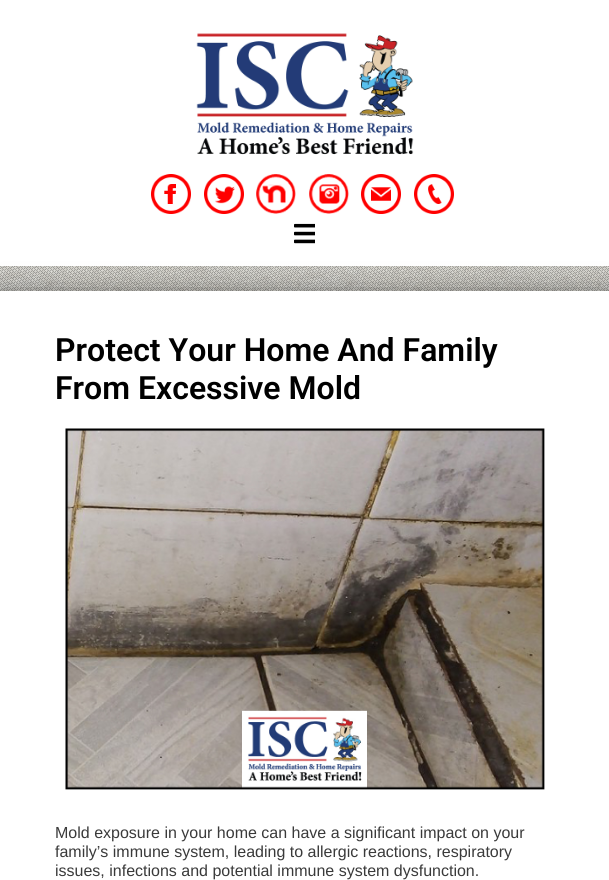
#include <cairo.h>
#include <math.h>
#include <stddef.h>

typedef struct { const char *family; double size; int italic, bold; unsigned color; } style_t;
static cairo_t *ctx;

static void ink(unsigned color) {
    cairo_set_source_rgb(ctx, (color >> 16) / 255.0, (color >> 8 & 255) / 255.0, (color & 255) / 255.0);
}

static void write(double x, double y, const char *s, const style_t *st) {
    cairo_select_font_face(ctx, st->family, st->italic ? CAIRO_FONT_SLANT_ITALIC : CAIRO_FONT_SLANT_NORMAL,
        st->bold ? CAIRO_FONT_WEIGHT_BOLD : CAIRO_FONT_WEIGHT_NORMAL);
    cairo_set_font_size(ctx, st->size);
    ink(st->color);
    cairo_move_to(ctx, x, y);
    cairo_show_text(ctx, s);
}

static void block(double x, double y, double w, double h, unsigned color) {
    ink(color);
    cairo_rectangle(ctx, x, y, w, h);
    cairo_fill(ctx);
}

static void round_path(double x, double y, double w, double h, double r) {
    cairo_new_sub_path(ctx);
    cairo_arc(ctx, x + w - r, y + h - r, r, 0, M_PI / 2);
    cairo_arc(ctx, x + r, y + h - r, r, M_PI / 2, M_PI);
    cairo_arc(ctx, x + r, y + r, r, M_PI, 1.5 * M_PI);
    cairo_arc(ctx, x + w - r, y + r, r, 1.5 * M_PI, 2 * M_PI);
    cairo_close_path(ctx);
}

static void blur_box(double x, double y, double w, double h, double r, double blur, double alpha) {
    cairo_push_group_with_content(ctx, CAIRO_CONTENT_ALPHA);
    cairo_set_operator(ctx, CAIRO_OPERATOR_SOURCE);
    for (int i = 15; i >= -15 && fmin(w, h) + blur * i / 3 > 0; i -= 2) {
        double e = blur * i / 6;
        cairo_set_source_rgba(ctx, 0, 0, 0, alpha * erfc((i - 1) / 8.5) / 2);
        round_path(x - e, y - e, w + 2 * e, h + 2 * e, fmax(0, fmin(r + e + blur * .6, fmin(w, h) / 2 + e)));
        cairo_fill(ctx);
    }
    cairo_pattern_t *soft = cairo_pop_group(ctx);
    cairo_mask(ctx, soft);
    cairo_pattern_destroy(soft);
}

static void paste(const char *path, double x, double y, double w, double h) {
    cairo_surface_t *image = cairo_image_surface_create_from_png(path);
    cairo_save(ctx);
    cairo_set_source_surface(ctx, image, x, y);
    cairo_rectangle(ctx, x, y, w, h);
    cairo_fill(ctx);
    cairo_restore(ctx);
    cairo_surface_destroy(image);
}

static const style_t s1 = {"Roboto SemiBold", 32, 0, 0, 0x000000};
static const style_t s2 = {"Liberation Sans", 16, 0, 0, 0x3a3a3a};

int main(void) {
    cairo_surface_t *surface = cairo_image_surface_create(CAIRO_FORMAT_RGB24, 609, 880);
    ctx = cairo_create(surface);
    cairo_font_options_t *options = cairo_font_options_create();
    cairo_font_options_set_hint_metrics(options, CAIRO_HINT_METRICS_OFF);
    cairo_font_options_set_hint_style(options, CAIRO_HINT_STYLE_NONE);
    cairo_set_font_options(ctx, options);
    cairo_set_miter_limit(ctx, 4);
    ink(0xffffff);
    cairo_paint(ctx);
    paste("pic1.png", 196, 33, 218, 122);
    paste("pic2.png", 151, 174, 40, 40);
    paste("pic3.png", 204, 174, 40, 40);
    paste("pic4.png", 256, 174, 40, 40);
    paste("pic5.png", 309, 174, 40, 40);
    paste("pic6.png", 361, 174, 40, 40);
    paste("pic7.png", 414, 174, 40, 40);
    paste("pic8.png", 294, 223, 21, 21);
    paste("pic9.png", 0, 266, 609, 25);
    ink(0x000000);
    blur_box(-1, 300, 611, 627, 0, 15.5, 0.75);
    block(0, 291, 609, 589, 0xffffff);
    write(55, 361, "Protect Your Home And Family", &s1);
    write(55, 399, "From Excessive Mold", &s1);
    paste("pic10.png", 65, 428, 480, 362);
    write(55, 838, "Mold exposure in your home can have a significant impact on your", &s2);
    write(55, 857, "family’s immune system, leading to allergic reactions, respiratory", &s2);
    write(55, 876, "issues, infections and potential immune system dysfunction.", &s2);
    cairo_surface_write_to_png(surface, "screenshot.png");
    cairo_font_options_destroy(options);
    cairo_destroy(ctx);
    cairo_surface_destroy(surface);
    return 0;
}
